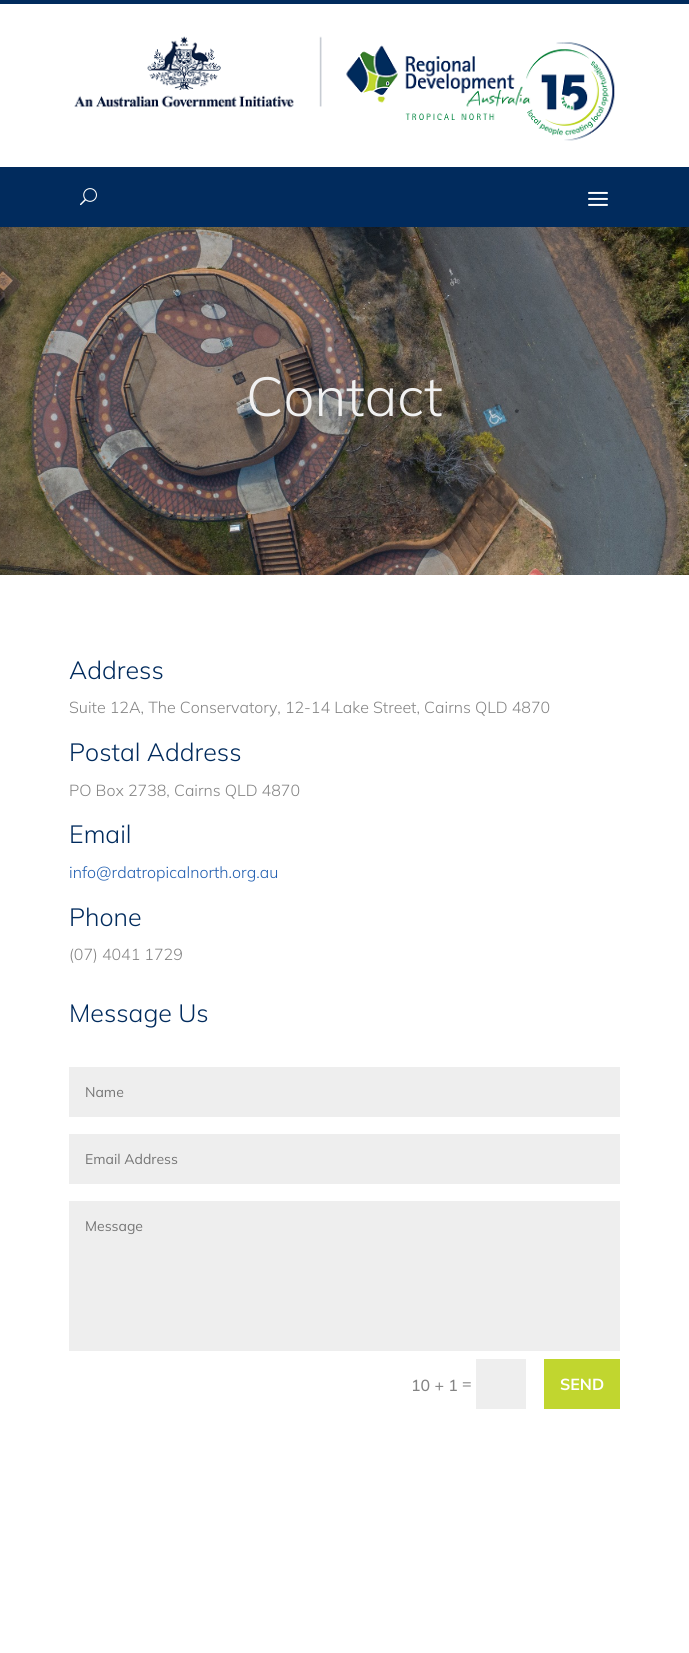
#include <cairo.h>
#include <math.h>
#include <stddef.h>

typedef struct { const char *family; double size; int italic, bold; unsigned color; } style_t;
static cairo_t *ctx;

static void ink(unsigned color) {
    cairo_set_source_rgb(ctx, (color >> 16) / 255.0, (color >> 8 & 255) / 255.0, (color & 255) / 255.0);
}

static void write(double x, double y, const char *s, const style_t *st) {
    cairo_select_font_face(ctx, st->family, st->italic ? CAIRO_FONT_SLANT_ITALIC : CAIRO_FONT_SLANT_NORMAL,
        st->bold ? CAIRO_FONT_WEIGHT_BOLD : CAIRO_FONT_WEIGHT_NORMAL);
    cairo_set_font_size(ctx, st->size);
    ink(st->color);
    cairo_move_to(ctx, x, y);
    cairo_show_text(ctx, s);
}

static void block(double x, double y, double w, double h, unsigned color) {
    ink(color);
    cairo_rectangle(ctx, x, y, w, h);
    cairo_fill(ctx);
}

static void paste(const char *path, double x, double y, double w, double h) {
    cairo_surface_t *image = cairo_image_surface_create_from_png(path);
    cairo_save(ctx);
    cairo_set_source_surface(ctx, image, x, y);
    cairo_rectangle(ctx, x, y, w, h);
    cairo_fill(ctx);
    cairo_restore(ctx);
    cairo_surface_destroy(image);
}

static const style_t s1 = {"Mulish ExtraLight", 55, 0, 0, 0xf1f1f1};
static const style_t s2 = {"Mulish ExtraLight", 25, 0, 0, 0x012b5d};
static const style_t s3 = {"Mulish ExtraLight", 16, 0, 0, 0x848484};
static const style_t s4 = {"Mulish ExtraLight", 16, 0, 0, 0x205eb0};
static const style_t s5 = {"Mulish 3 ExtraLight", 14, 0, 0, 0x757575};
static const style_t s6 = {"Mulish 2 ExtraLight", 16, 0, 0, 0x848484};
static const style_t s7 = {"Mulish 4 ExtraLight", 16, 0, 0, 0xffffff};

int main(void) {
    cairo_surface_t *surface = cairo_image_surface_create(CAIRO_FORMAT_RGB24, 689, 1653);
    ctx = cairo_create(surface);
    cairo_font_options_t *options = cairo_font_options_create();
    cairo_font_options_set_hint_metrics(options, CAIRO_HINT_METRICS_OFF);
    cairo_font_options_set_hint_style(options, CAIRO_HINT_STYLE_NONE);
    cairo_set_font_options(ctx, options);
    cairo_set_miter_limit(ctx, 4);
    ink(0xffffff);
    cairo_paint(ctx);
    block(0, 0, 689, 4, 0x012b5d);
    paste("pic1.png", 74, 36, 541, 105);
    block(0, 167, 689, 60, 0x012b5d);
    paste("pic2.png", 80, 188, 17, 18);
    paste("pic3.png", 588, 191, 20, 15);
    paste("pic4.png", 0, 227, 689, 348);
    write(246, 416, "Contact", &s1);
    write(69, 679, "Address", &s2);
    write(69, 713, "Suite 12A, The Conservatory, 12-14 Lake Street, Cairns QLD 4870", &s3);
    write(69, 761, "Postal Address", &s2);
    write(69, 796, "PO Box 2738, Cairns QLD 4870", &s3);
    write(69, 843, "Email", &s2);
    write(69, 878, "info@rdatropicalnorth.org.au", &s4);
    write(69, 926, "Phone", &s2);
    write(69, 960, "(07) 4041 1729", &s3);
    write(69, 1022, "Message Us", &s2);
    block(69, 1067, 551, 50, 0xeeeeee);
    write(85, 1097, "Name", &s5);
    block(69, 1134, 551, 50, 0xeeeeee);
    write(85, 1164, "Email Address", &s5);
    block(69, 1201, 551, 150, 0xeeeeee);
    write(85, 1231, "Message", &s5);
    write(411, 1391, "10 + 1", &s6);
    write(462, 1389, "=", &s6);
    block(476, 1359, 50, 50, 0xeeeeee);
    block(544, 1359, 76, 50, 0xc1d62f);
    write(560, 1390, "SEND", &s7);
    cairo_surface_write_to_png(surface, "screenshot.png");
    cairo_font_options_destroy(options);
    cairo_destroy(ctx);
    cairo_surface_destroy(surface);
    return 0;
}
